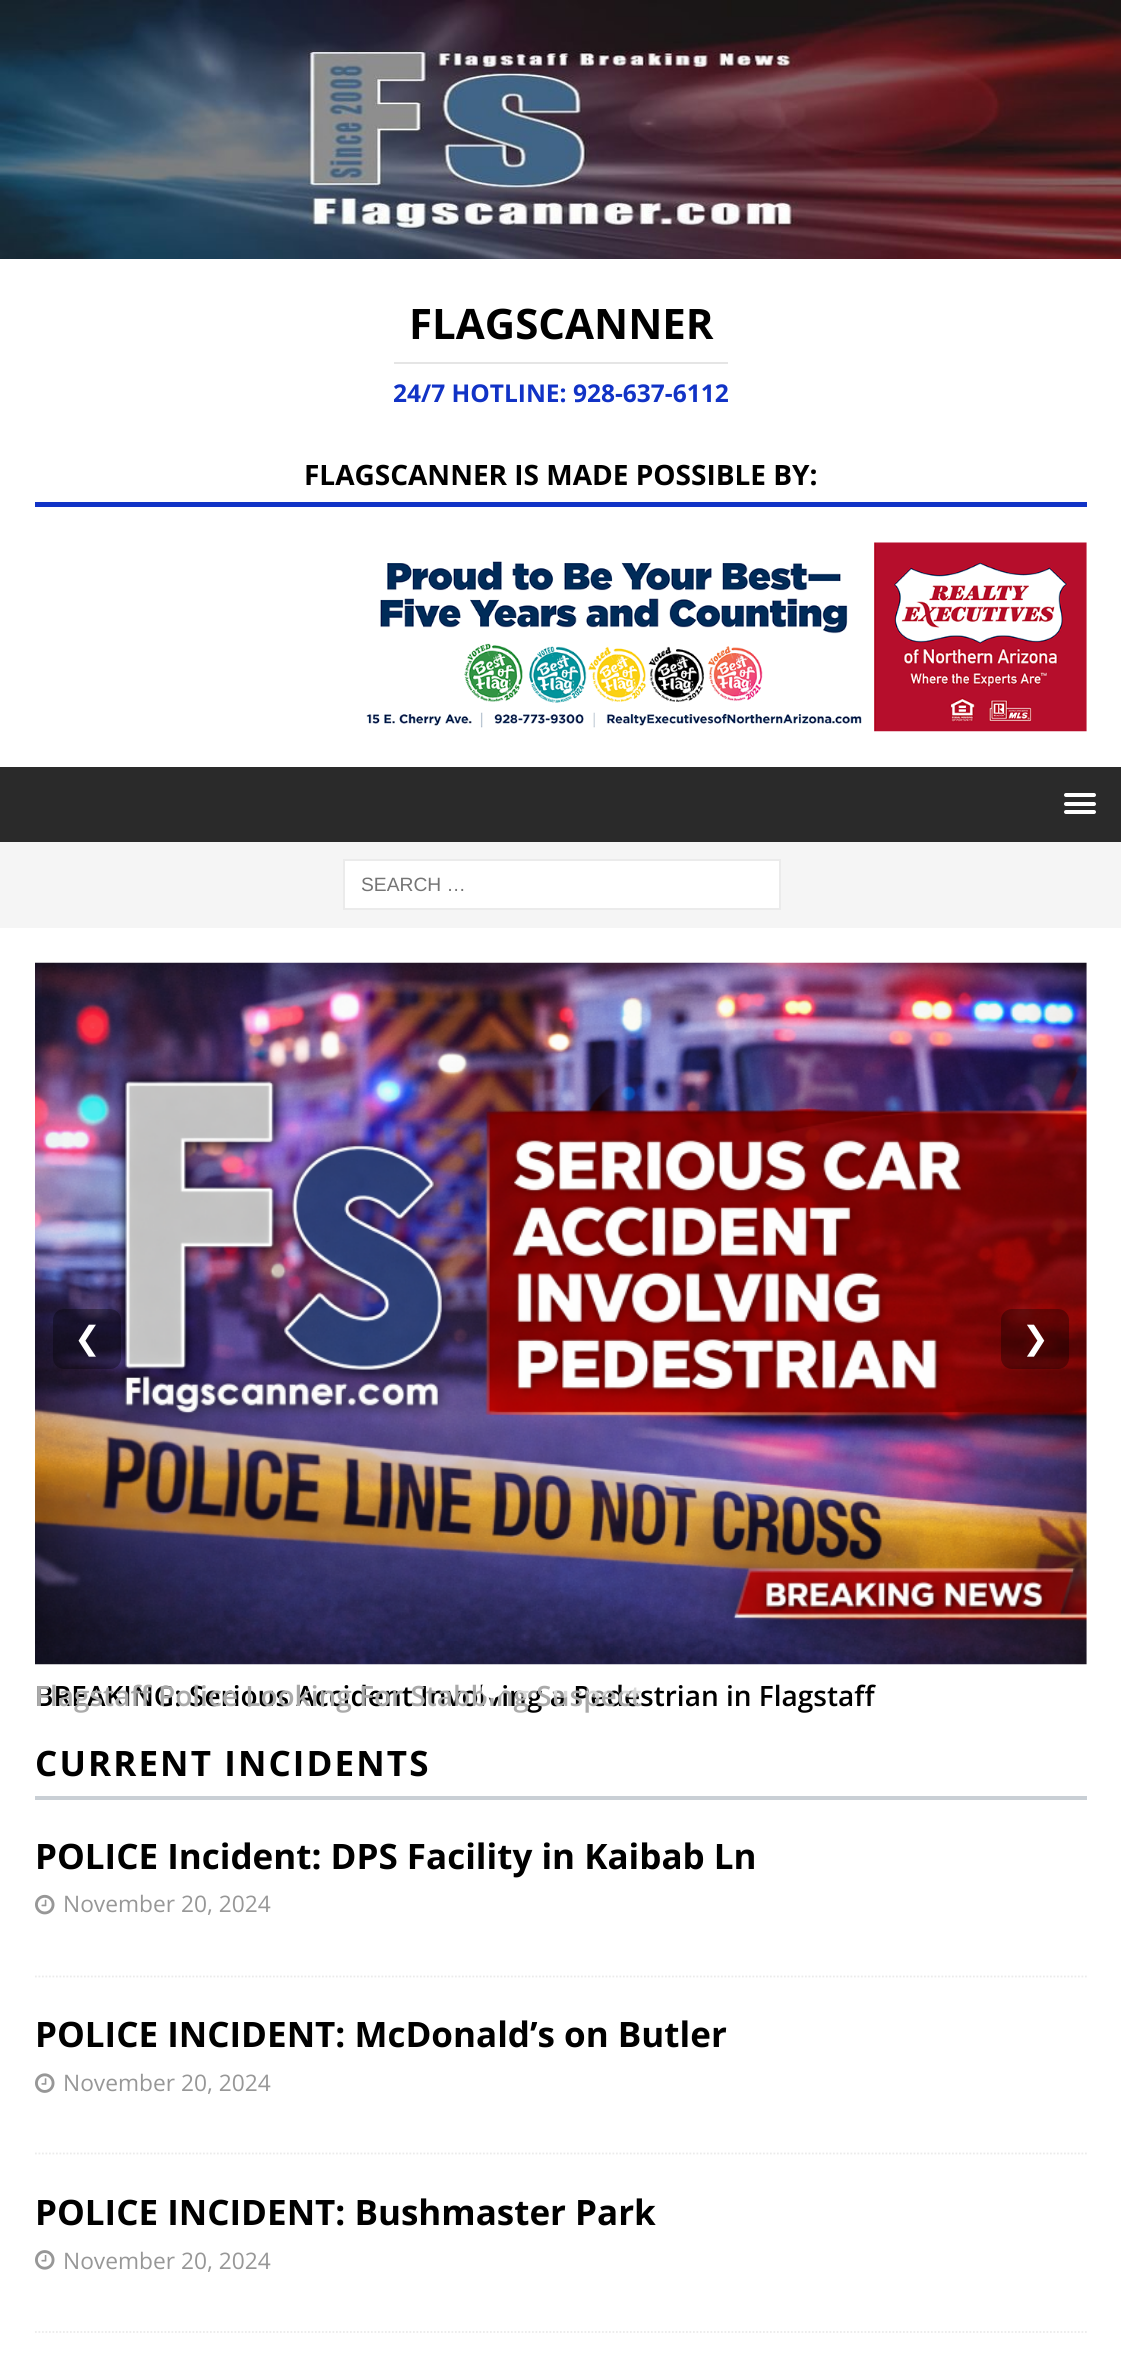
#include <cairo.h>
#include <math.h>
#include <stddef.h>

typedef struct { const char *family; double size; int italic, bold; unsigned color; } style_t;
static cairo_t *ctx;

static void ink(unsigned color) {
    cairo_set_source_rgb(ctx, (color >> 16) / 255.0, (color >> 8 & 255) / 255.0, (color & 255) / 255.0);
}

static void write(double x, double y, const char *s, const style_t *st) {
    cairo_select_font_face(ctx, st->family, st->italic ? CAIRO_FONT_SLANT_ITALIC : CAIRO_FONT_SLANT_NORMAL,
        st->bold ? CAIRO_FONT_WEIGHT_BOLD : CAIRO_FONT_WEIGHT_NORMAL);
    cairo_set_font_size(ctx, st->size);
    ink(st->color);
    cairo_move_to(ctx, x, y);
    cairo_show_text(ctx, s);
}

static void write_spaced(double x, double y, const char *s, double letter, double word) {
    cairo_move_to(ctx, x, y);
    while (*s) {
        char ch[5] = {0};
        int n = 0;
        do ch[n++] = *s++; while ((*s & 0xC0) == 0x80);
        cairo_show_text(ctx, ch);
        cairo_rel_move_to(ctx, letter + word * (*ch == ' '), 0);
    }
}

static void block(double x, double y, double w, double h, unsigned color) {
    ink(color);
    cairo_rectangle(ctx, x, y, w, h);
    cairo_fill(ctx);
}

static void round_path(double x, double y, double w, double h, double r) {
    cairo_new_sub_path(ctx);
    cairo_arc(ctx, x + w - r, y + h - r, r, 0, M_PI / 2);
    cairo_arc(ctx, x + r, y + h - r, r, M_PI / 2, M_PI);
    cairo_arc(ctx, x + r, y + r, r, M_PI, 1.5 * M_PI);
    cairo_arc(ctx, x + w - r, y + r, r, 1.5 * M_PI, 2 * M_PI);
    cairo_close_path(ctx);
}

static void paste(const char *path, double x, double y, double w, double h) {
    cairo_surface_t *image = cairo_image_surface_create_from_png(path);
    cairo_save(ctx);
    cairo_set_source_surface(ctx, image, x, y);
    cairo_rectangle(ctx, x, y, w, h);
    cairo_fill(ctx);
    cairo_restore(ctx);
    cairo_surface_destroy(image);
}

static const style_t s1 = {"Open Sans", 42, 0, 1, 0x000000};
static const style_t s2 = {"Open Sans", 24.5, 0, 1, 0x1133c6};
static const style_t s3 = {"Open Sans", 28, 0, 1, 0x000000};
static const style_t s4 = {"Liberation Sans", 19.25, 0, 0, 0x757575};
static const style_t s5 = {"DejaVu Sans", 32, 0, 0, 0xffffff};
static const style_t s6 = {"Open Sans SemiBold", 28, 0, 0, 0x000000};
static const style_t s7 = {"Open Sans SemiBold", 28, 0, 0, 0xaaaaaa};
static const style_t s8 = {"Open Sans", 35, 0, 1, 0x000000};
static const style_t s9 = {"Open Sans", 22.75, 0, 0, 0x979797};

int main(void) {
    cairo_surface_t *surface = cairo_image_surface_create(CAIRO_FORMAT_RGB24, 1121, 2360);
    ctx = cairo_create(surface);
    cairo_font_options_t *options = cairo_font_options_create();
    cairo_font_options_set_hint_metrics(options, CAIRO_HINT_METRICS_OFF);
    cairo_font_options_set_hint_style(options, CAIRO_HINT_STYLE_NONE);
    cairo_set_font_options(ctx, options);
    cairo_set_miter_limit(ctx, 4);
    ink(0xffffff);
    cairo_paint(ctx);
    paste("pic1.png", 0, 0, 1121, 259);
    write(409, 339, "FLAGSCANNER", &s1);
    block(394, 362, 334, 2, 0xe5e5e5);
    write(393, 402, "24/7 HOTLINE: 928-637-6112", &s2);
    block(35, 502, 1052, 5, 0x1133c6);
    write(304, 485, "FLAGSCANNER IS MADE POSSIBLE BY:", &s3);
    paste("pic2.png", 366, 542, 721, 190);
    block(0, 767, 1121, 75, 0x2a2a2a);
    ink(0xffffff);
    round_path(1064, 793, 32, 4, 2);
    cairo_fill(ctx);
    round_path(1064, 802, 32, 4, 2);
    cairo_fill(ctx);
    round_path(1064, 810, 32, 4, 2);
    cairo_fill(ctx);
    block(0, 842, 1121, 86, 0xf5f5f5);
    ink(0xffffff);
    cairo_rectangle(ctx, 344, 860, 436, 49);
    cairo_fill_preserve(ctx);
    ink(0xebebeb);
    cairo_stroke(ctx);
    write(361, 891, "SEARCH …", &s4);
    paste("pic3.png", 35, 962, 1052, 703);
    cairo_set_source_rgba(ctx, 0, 0, 0, 0.35);
    round_path(53, 1309, 68, 60, 11);
    cairo_fill(ctx);
    write(74, 1349, "❮", &s5);
    cairo_set_source_rgba(ctx, 0, 0, 0, 0.35);
    round_path(1001, 1309, 68, 60, 11);
    cairo_fill(ctx);
    write(1022, 1349, "❯", &s5);
    write(35, 1706, "BREAKING: Serious Accident Involving a Pedestrian in Flagstaff", &s6);
    write(35, 1706, "Flagstaff Police Looking For Stabbing Suspect", &s7);
    ink(0xffffff);
    cairo_new_path(ctx);
    cairo_move_to(ctx, 492, 1680);
    cairo_curve_to(ctx, 498, 1680, 502.5, 1684, 502.5, 1689);
    cairo_curve_to(ctx, 502.5, 1694, 498, 1698, 492, 1698);
    cairo_curve_to(ctx, 486, 1698, 481.5, 1694, 481.5, 1689);
    cairo_curve_to(ctx, 481.5, 1684, 486, 1680, 492, 1680);
    cairo_close_path(ctx);
    cairo_fill(ctx);
    cairo_set_source_rgba(ctx, 1, 1, 1, 0.55);
    cairo_new_path(ctx);
    cairo_move_to(ctx, 527, 1680);
    cairo_curve_to(ctx, 533, 1680, 537.5, 1684, 537.5, 1689);
    cairo_curve_to(ctx, 537.5, 1694, 533, 1698, 527, 1698);
    cairo_curve_to(ctx, 521, 1698, 516.5, 1694, 516.5, 1689);
    cairo_curve_to(ctx, 516.5, 1684, 521, 1680, 527, 1680);
    cairo_close_path(ctx);
    cairo_fill(ctx);
    cairo_new_path(ctx);
    cairo_move_to(ctx, 562, 1680);
    cairo_curve_to(ctx, 568, 1680, 572.5, 1684, 572.5, 1689);
    cairo_curve_to(ctx, 572.5, 1694, 568, 1698, 562, 1698);
    cairo_curve_to(ctx, 556, 1698, 551.5, 1694, 551.5, 1689);
    cairo_curve_to(ctx, 551.5, 1684, 556, 1680, 562, 1680);
    cairo_close_path(ctx);
    cairo_fill(ctx);
    cairo_new_path(ctx);
    cairo_move_to(ctx, 597, 1680);
    cairo_curve_to(ctx, 603, 1680, 607.5, 1684, 607.5, 1689);
    cairo_curve_to(ctx, 607.5, 1694, 603, 1698, 597, 1698);
    cairo_curve_to(ctx, 591, 1698, 586.5, 1694, 586.5, 1689);
    cairo_curve_to(ctx, 586.5, 1684, 591, 1680, 597, 1680);
    cairo_close_path(ctx);
    cairo_fill(ctx);
    cairo_new_path(ctx);
    cairo_move_to(ctx, 632, 1680);
    cairo_curve_to(ctx, 638, 1680, 642.5, 1684, 642.5, 1689);
    cairo_curve_to(ctx, 642.5, 1694, 638, 1698, 632, 1698);
    cairo_curve_to(ctx, 626, 1698, 621.5, 1694, 621.5, 1689);
    cairo_curve_to(ctx, 621.5, 1684, 626, 1680, 632, 1680);
    cairo_close_path(ctx);
    cairo_fill(ctx);
    cairo_select_font_face(ctx, "Open Sans", CAIRO_FONT_SLANT_NORMAL, CAIRO_FONT_WEIGHT_BOLD);
    cairo_set_font_size(ctx, 35);
    ink(0x000000);
    write_spaced(35, 1776, "CURRENT INCIDENTS", 2.1, 0);
    block(35, 1796, 1052, 4, 0xc9cfd5);
    cairo_new_path(ctx);
    cairo_move_to(ctx, 35, 1976.5);
    cairo_line_to(ctx, 1087, 1976.5);
    ink(0xebebeb);
    cairo_set_line_width(ctx, 1.8);
    cairo_set_dash(ctx, (double[]){1.75, 1.75}, 2, 0);
    cairo_stroke(ctx);
    write(35, 1869, "POLICE Incident: DPS Facility in Kaibab Ln", &s8);
    paste("pic4.png", 35, 1894, 20, 21);
    write(63, 1912, "November 20, 2024", &s9);
    cairo_new_path(ctx);
    cairo_move_to(ctx, 35, 2153.5);
    cairo_line_to(ctx, 1087, 2153.5);
    ink(0xebebeb);
    cairo_stroke(ctx);
    write(35, 2047, "POLICE INCIDENT: McDonald’s on Butler", &s8);
    paste("pic5.png", 35, 2073, 20, 20);
    write(63, 2091, "November 20, 2024", &s9);
    cairo_new_path(ctx);
    cairo_move_to(ctx, 35, 2332);
    cairo_line_to(ctx, 1087, 2332);
    ink(0xebebeb);
    cairo_stroke(ctx);
    write(35, 2225, "POLICE INCIDENT: Bushmaster Park", &s8);
    paste("pic6.png", 35, 2250, 20, 20);
    write(63, 2269, "November 20, 2024", &s9);
    cairo_surface_write_to_png(surface, "screenshot.png");
    cairo_font_options_destroy(options);
    cairo_destroy(ctx);
    cairo_surface_destroy(surface);
    return 0;
}
